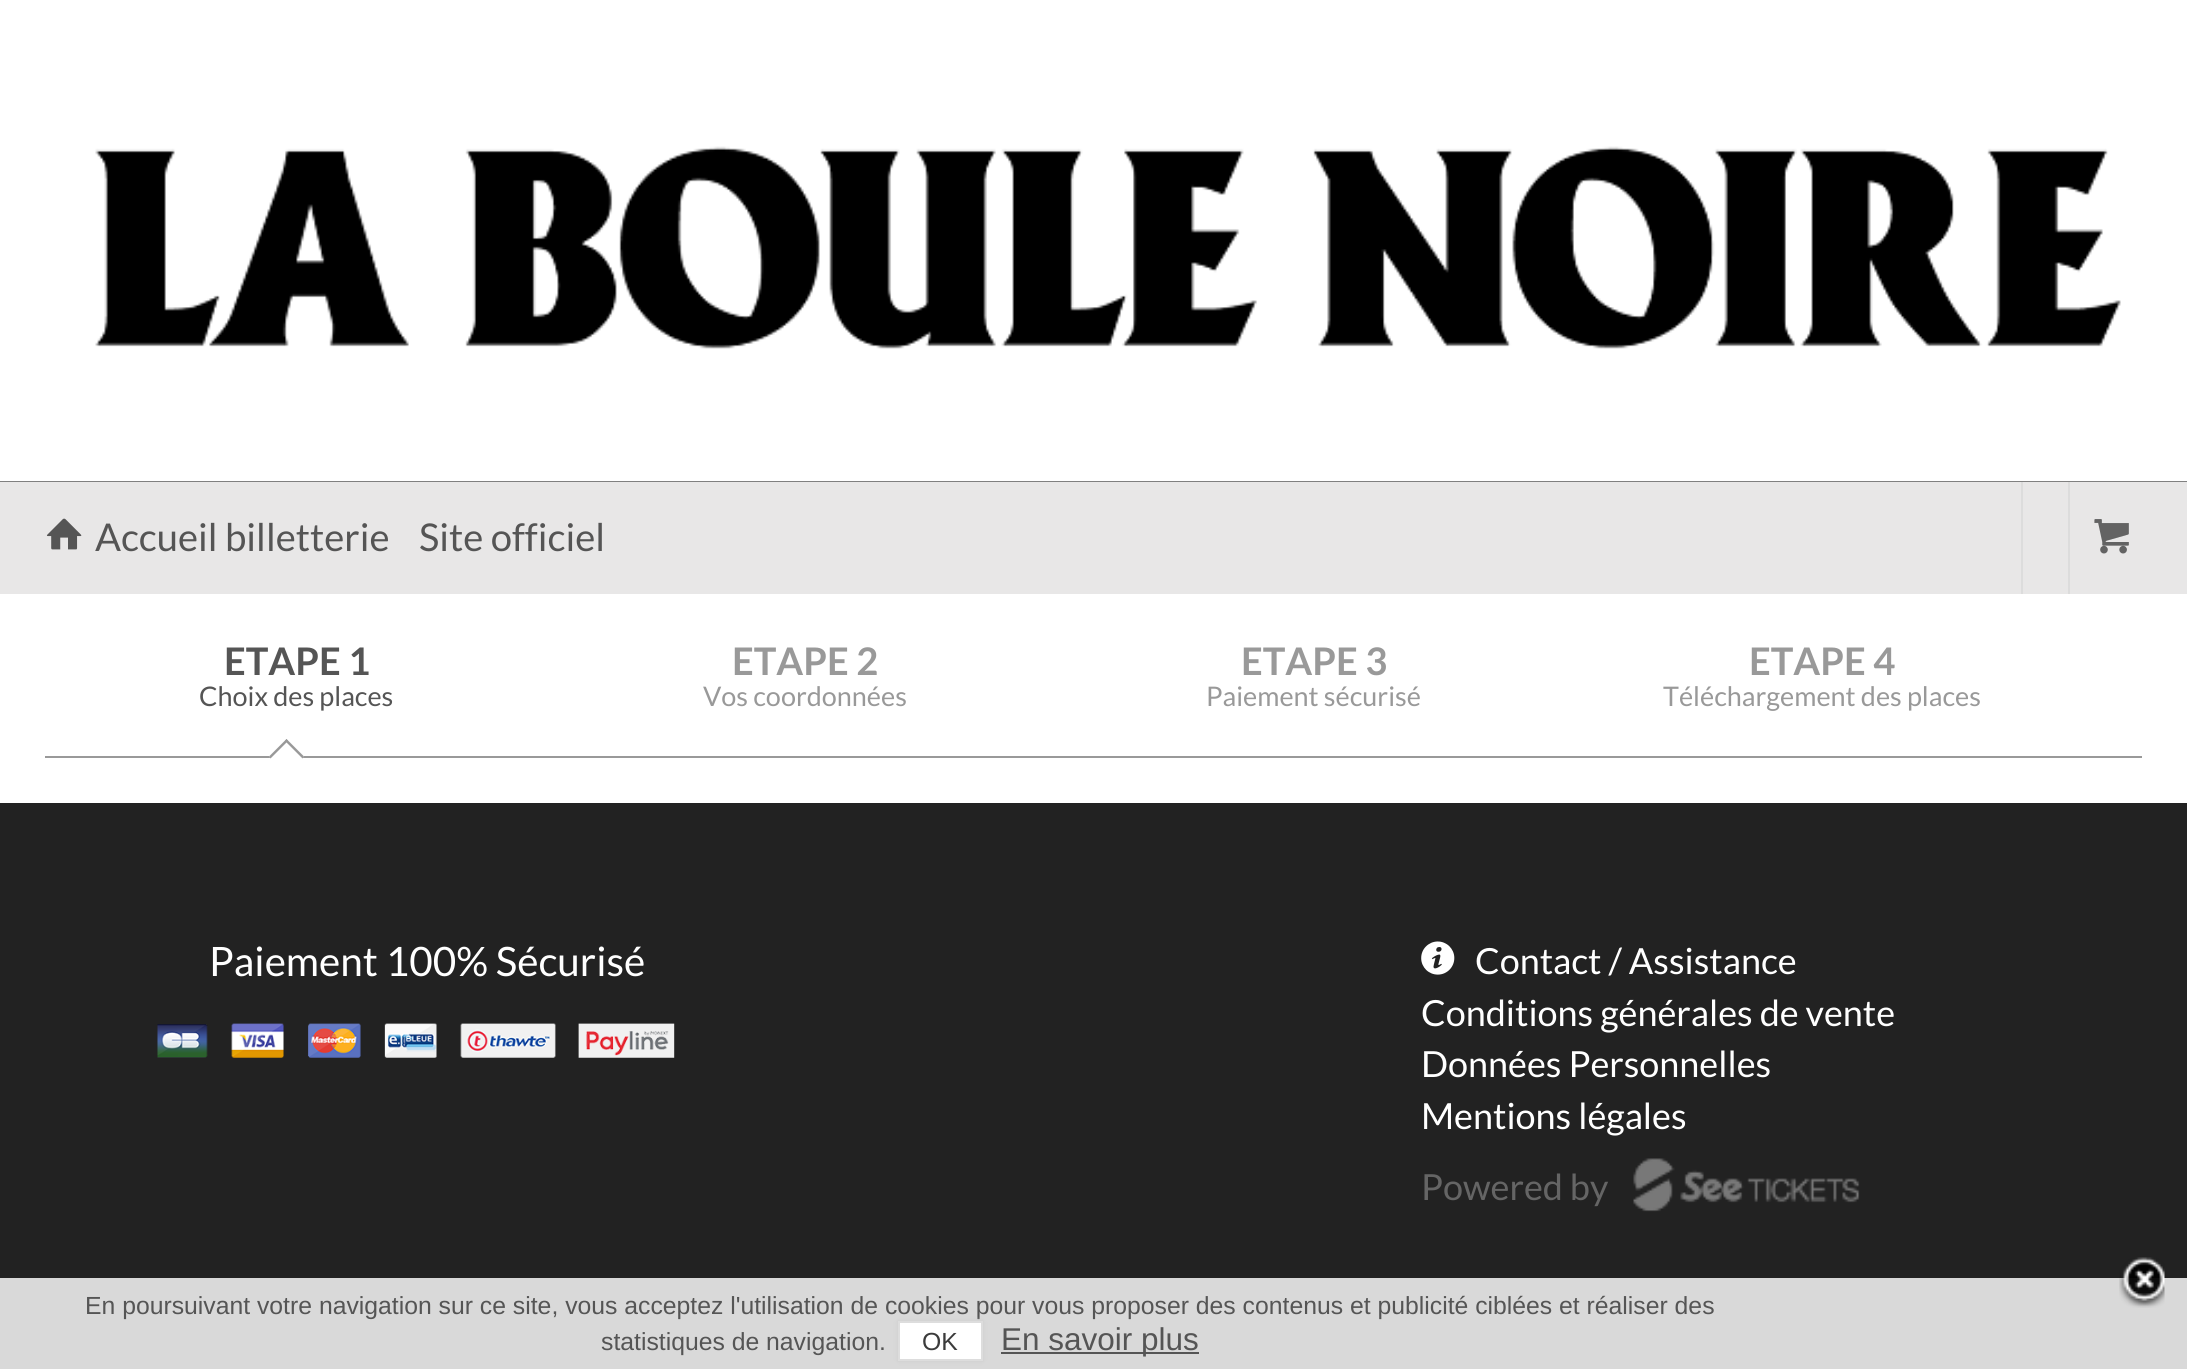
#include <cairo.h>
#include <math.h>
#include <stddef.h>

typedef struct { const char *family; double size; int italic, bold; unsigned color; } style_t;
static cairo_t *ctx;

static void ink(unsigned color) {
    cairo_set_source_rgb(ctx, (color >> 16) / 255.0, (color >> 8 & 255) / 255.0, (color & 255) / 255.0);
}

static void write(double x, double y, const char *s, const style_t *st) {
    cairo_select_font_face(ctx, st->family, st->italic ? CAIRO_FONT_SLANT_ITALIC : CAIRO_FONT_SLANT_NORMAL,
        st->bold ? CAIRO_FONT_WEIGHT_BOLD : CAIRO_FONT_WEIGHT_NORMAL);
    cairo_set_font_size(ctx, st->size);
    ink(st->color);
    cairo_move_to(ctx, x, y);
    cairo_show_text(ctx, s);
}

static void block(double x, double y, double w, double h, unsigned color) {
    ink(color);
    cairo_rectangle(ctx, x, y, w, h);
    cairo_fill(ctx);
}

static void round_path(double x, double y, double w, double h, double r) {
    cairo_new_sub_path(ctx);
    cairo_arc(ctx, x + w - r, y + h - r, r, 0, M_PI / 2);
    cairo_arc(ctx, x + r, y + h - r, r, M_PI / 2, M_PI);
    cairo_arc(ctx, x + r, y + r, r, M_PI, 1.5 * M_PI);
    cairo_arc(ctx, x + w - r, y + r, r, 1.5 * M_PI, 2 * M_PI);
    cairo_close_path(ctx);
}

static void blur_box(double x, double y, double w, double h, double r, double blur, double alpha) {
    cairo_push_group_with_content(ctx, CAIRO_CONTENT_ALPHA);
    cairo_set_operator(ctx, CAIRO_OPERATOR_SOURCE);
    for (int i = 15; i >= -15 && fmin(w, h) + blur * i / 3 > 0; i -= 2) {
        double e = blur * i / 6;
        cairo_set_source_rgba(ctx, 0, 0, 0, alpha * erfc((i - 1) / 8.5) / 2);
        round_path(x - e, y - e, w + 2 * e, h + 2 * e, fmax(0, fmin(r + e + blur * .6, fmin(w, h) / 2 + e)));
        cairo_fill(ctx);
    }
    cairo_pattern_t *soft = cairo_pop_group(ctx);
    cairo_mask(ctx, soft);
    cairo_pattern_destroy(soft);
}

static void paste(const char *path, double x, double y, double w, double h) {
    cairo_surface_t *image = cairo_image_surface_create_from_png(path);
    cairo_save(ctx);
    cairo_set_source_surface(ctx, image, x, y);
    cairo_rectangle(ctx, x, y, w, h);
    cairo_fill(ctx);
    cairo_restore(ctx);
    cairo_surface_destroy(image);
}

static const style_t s1 = {"Lato", 38.25, 0, 0, 0x555555};
static const style_t s2 = {"Lato", 38, 0, 1, 0x555555};
static const style_t s3 = {"Lato", 27, 0, 0, 0x555555};
static const style_t s4 = {"Lato", 38, 0, 1, 0x999999};
static const style_t s5 = {"Lato", 27, 0, 0, 0x999999};
static const style_t s6 = {"Lato", 40.5, 0, 0, 0xffffff};
static const style_t s7 = {"Lato", 36, 0, 0, 0xffffff};
static const style_t s8 = {"Lato", 36, 0, 0, 0x656565};
static const style_t s9 = {"Liberation Sans", 24.75, 0, 0, 0x555555};
static const style_t s10 = {"Liberation Sans", 24.75, 0, 0, 0x3b3b3b};
static const style_t s11 = {"Liberation Sans", 31.5, 0, 0, 0x555555};

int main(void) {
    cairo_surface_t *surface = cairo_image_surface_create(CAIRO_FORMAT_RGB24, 2187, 1369);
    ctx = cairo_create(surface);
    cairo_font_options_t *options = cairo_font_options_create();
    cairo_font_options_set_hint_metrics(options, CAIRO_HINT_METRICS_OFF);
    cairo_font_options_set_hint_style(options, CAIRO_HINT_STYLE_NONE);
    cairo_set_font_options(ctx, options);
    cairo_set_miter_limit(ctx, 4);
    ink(0xffffff);
    cairo_paint(ctx);
    block(0, 481, 2187, 1, 0x000000);
    paste("pic1.png", 0, 0, 2187, 482);
    block(0, 482, 2187, 112, 0xe8e7e7);
    paste("pic2.png", 46, 518, 36, 32);
    write(95, 551, "Accueil billetterie", &s1);
    write(419, 551, "Site officiel", &s1);
    block(2021, 482, 2, 112, 0xdcdcdc);
    block(2068, 482, 2, 112, 0xdcdcdc);
    paste("pic3.png", 2094, 519, 35, 35);
    block(45, 756, 2097, 2, 0x999999);
    write(224, 675, "ETAPE 1", &s2);
    write(199, 706, "Choix des places", &s3);
    ink(0xffffff);
    cairo_new_path(ctx);
    cairo_move_to(ctx, 286.5, 739);
    cairo_line_to(ctx, 304, 756.5);
    cairo_line_to(ctx, 286.5, 774);
    cairo_line_to(ctx, 269, 756.5);
    cairo_close_path(ctx);
    cairo_fill(ctx);
    ink(0x999999);
    cairo_new_path(ctx);
    cairo_move_to(ctx, 286.5, 739);
    cairo_line_to(ctx, 304, 756.5);
    cairo_line_to(ctx, 302.5, 758.5);
    cairo_line_to(ctx, 285, 741);
    cairo_close_path(ctx);
    cairo_fill(ctx);
    cairo_new_path(ctx);
    cairo_move_to(ctx, 286.5, 739);
    cairo_line_to(ctx, 288, 741);
    cairo_line_to(ctx, 270.5, 758.5);
    cairo_line_to(ctx, 269, 756.5);
    cairo_close_path(ctx);
    cairo_fill(ctx);
    write(732, 675, "ETAPE 2", &s4);
    write(703, 706, "Vos coordonnées", &s5);
    write(1241, 675, "ETAPE 3", &s4);
    write(1206, 706, "Paiement sécurisé", &s5);
    write(1749, 675, "ETAPE 4", &s4);
    write(1663, 706, "Téléchargement des places", &s5);
    block(0, 803, 2187, 475, 0x222222);
    paste("pic4.png", 157, 1023, 518, 35);
    write(209, 976, "Paiement 100% Sécurisé", &s6);
    paste("pic5.png", 1421, 941, 34, 34);
    write(1475, 974, "Contact / Assistance", &s7);
    write(1421, 1026, "Conditions générales de vente", &s7);
    write(1421, 1077, "Données Personnelles", &s7);
    write(1421, 1129, "Mentions légales", &s7);
    write(1421, 1200, "Powered by", &s8);
    paste("pic6.png", 1633, 1158, 227, 54);
    block(0, 1278, 2187, 91, 0xd9d9d9);
    paste("pic7.png", 2119, 1257, 46, 51);
    write(85, 1314, "En poursuivant votre navigation sur ce site, vous acceptez l'utilisation de cookies pour vous proposer des contenus et publicité ciblées et réaliser des", &s9);
    write(601, 1350, "statistiques de navigation.", &s9);
    ink(0xcccccc);
    blur_box(898, 1321, 85, 40, 0, 2, 1);
    ink(0xffffff);
    cairo_rectangle(ctx, 899, 1322, 83, 38);
    cairo_fill_preserve(ctx);
    ink(0xdddddd);
    cairo_stroke(ctx);
    write(922, 1350, "OK", &s10);
    block(1001, 1352, 198, 2, 0x555555);
    write(1001, 1350, "En savoir plus", &s11);
    cairo_surface_write_to_png(surface, "screenshot.png");
    cairo_font_options_destroy(options);
    cairo_destroy(ctx);
    cairo_surface_destroy(surface);
    return 0;
}
